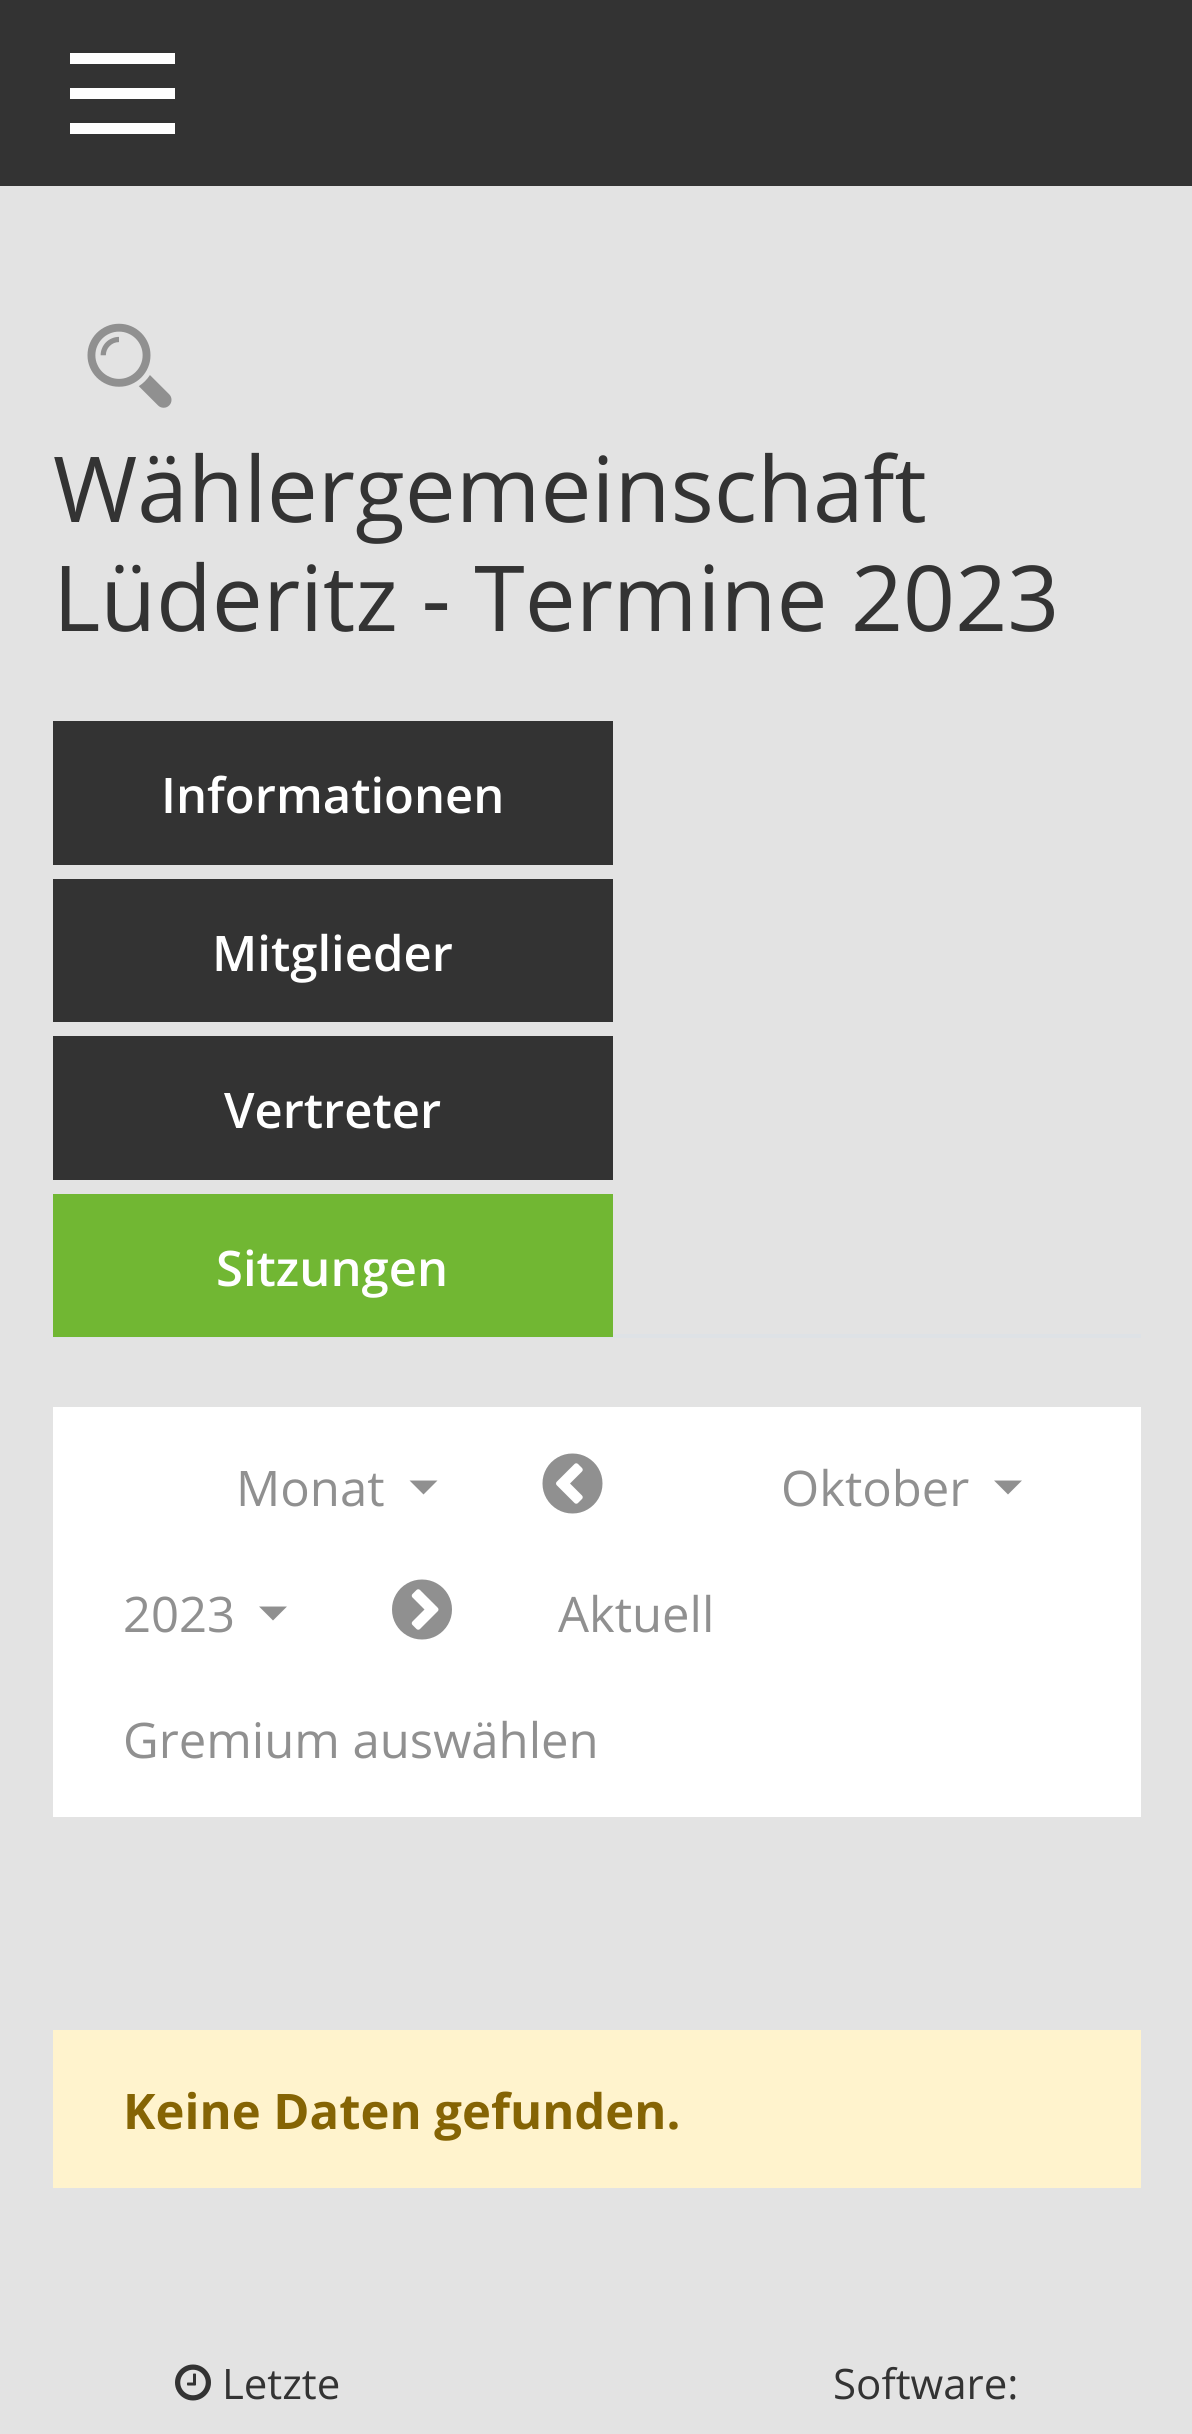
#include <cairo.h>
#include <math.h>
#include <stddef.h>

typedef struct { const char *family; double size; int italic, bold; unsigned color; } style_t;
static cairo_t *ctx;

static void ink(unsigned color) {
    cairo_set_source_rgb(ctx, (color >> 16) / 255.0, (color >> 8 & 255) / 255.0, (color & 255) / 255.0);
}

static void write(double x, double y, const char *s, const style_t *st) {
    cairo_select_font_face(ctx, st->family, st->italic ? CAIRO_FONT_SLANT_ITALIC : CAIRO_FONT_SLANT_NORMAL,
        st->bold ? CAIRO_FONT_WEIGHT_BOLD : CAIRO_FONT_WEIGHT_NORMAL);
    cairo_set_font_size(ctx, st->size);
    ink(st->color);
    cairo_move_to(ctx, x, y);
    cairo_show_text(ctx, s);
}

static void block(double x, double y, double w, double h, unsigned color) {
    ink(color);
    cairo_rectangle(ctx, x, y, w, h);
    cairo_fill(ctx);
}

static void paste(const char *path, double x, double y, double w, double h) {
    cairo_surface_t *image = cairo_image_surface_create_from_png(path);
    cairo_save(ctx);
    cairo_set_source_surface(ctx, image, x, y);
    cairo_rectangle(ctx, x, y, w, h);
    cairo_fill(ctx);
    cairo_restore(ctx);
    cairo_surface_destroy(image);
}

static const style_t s1 = {"Open Sans", 91, 0, 0, 0x333333};
static const style_t s2 = {"Open Sans SemiBold", 49, 0, 0, 0xffffff};
static const style_t s3 = {"Open Sans", 49, 0, 0, 0x909090};
static const style_t s4 = {"Open Sans", 49, 0, 1, 0x856404};
static const style_t s5 = {"Open Sans", 42, 0, 0, 0x333333};

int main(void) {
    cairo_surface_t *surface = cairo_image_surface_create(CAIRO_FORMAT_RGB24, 1192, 2434);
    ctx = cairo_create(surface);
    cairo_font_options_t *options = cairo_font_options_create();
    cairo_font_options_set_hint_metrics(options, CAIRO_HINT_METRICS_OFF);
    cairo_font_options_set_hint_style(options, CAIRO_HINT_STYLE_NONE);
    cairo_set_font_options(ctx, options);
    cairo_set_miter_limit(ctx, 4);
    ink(0xe3e3e3);
    cairo_paint(ctx);
    block(0, 0, 1192, 186, 0x333333);
    block(70, 53, 105, 11, 0xffffff);
    block(70, 88, 105, 11, 0xffffff);
    block(70, 123, 105, 11, 0xffffff);
    paste("pic1.png", 87, 323, 85, 85);
    write(53, 522, "Wählergemeinschaft", &s1);
    write(53, 631, "Lüderitz - Termine 2023", &s1);
    block(53, 1334, 1088, 4, 0xdee2e6);
    block(53, 721, 560, 144, 0x333333);
    write(161, 813, "Informationen", &s2);
    block(53, 879, 560, 143, 0x333333);
    write(212, 971, "Mitglieder", &s2);
    block(53, 1036, 560, 144, 0x333333);
    write(224, 1128, "Vertreter", &s2);
    block(53, 1194, 560, 143, 0x71b733);
    write(216, 1286, "Sitzungen", &s2);
    block(53, 1407, 1088, 410, 0xffffff);
    write(236, 1506, "Monat", &s3);
    cairo_new_path(ctx);
    cairo_move_to(ctx, 409.5, 1480.5);
    cairo_line_to(ctx, 437.5, 1480.5);
    cairo_line_to(ctx, 423.5, 1494.5);
    cairo_close_path(ctx);
    cairo_fill(ctx);
    paste("pic2.png", 542, 1453, 61, 61);
    write(781, 1506, "Oktober", &s3);
    cairo_new_path(ctx);
    cairo_move_to(ctx, 994, 1480.5);
    cairo_line_to(ctx, 1022, 1480.5);
    cairo_line_to(ctx, 1008, 1494.5);
    cairo_close_path(ctx);
    cairo_fill(ctx);
    write(123, 1632, "2023", &s3);
    cairo_new_path(ctx);
    cairo_move_to(ctx, 259, 1606.5);
    cairo_line_to(ctx, 287, 1606.5);
    cairo_line_to(ctx, 273, 1620.5);
    cairo_close_path(ctx);
    cairo_fill(ctx);
    paste("pic3.png", 392, 1579, 60, 61);
    write(558, 1632, "Aktuell", &s3);
    write(123, 1758, "Gremium auswählen", &s3);
    block(53, 2030, 1088, 158, 0xfff3cd);
    write(123, 2129, "Keine Daten gefunden.", &s4);
    paste("pic4.png", 175, 2364, 36, 37);
    write(222, 2399, "Letzte", &s5);
    write(833, 2399, "Software:", &s5);
    cairo_surface_write_to_png(surface, "screenshot.png");
    cairo_font_options_destroy(options);
    cairo_destroy(ctx);
    cairo_surface_destroy(surface);
    return 0;
}
